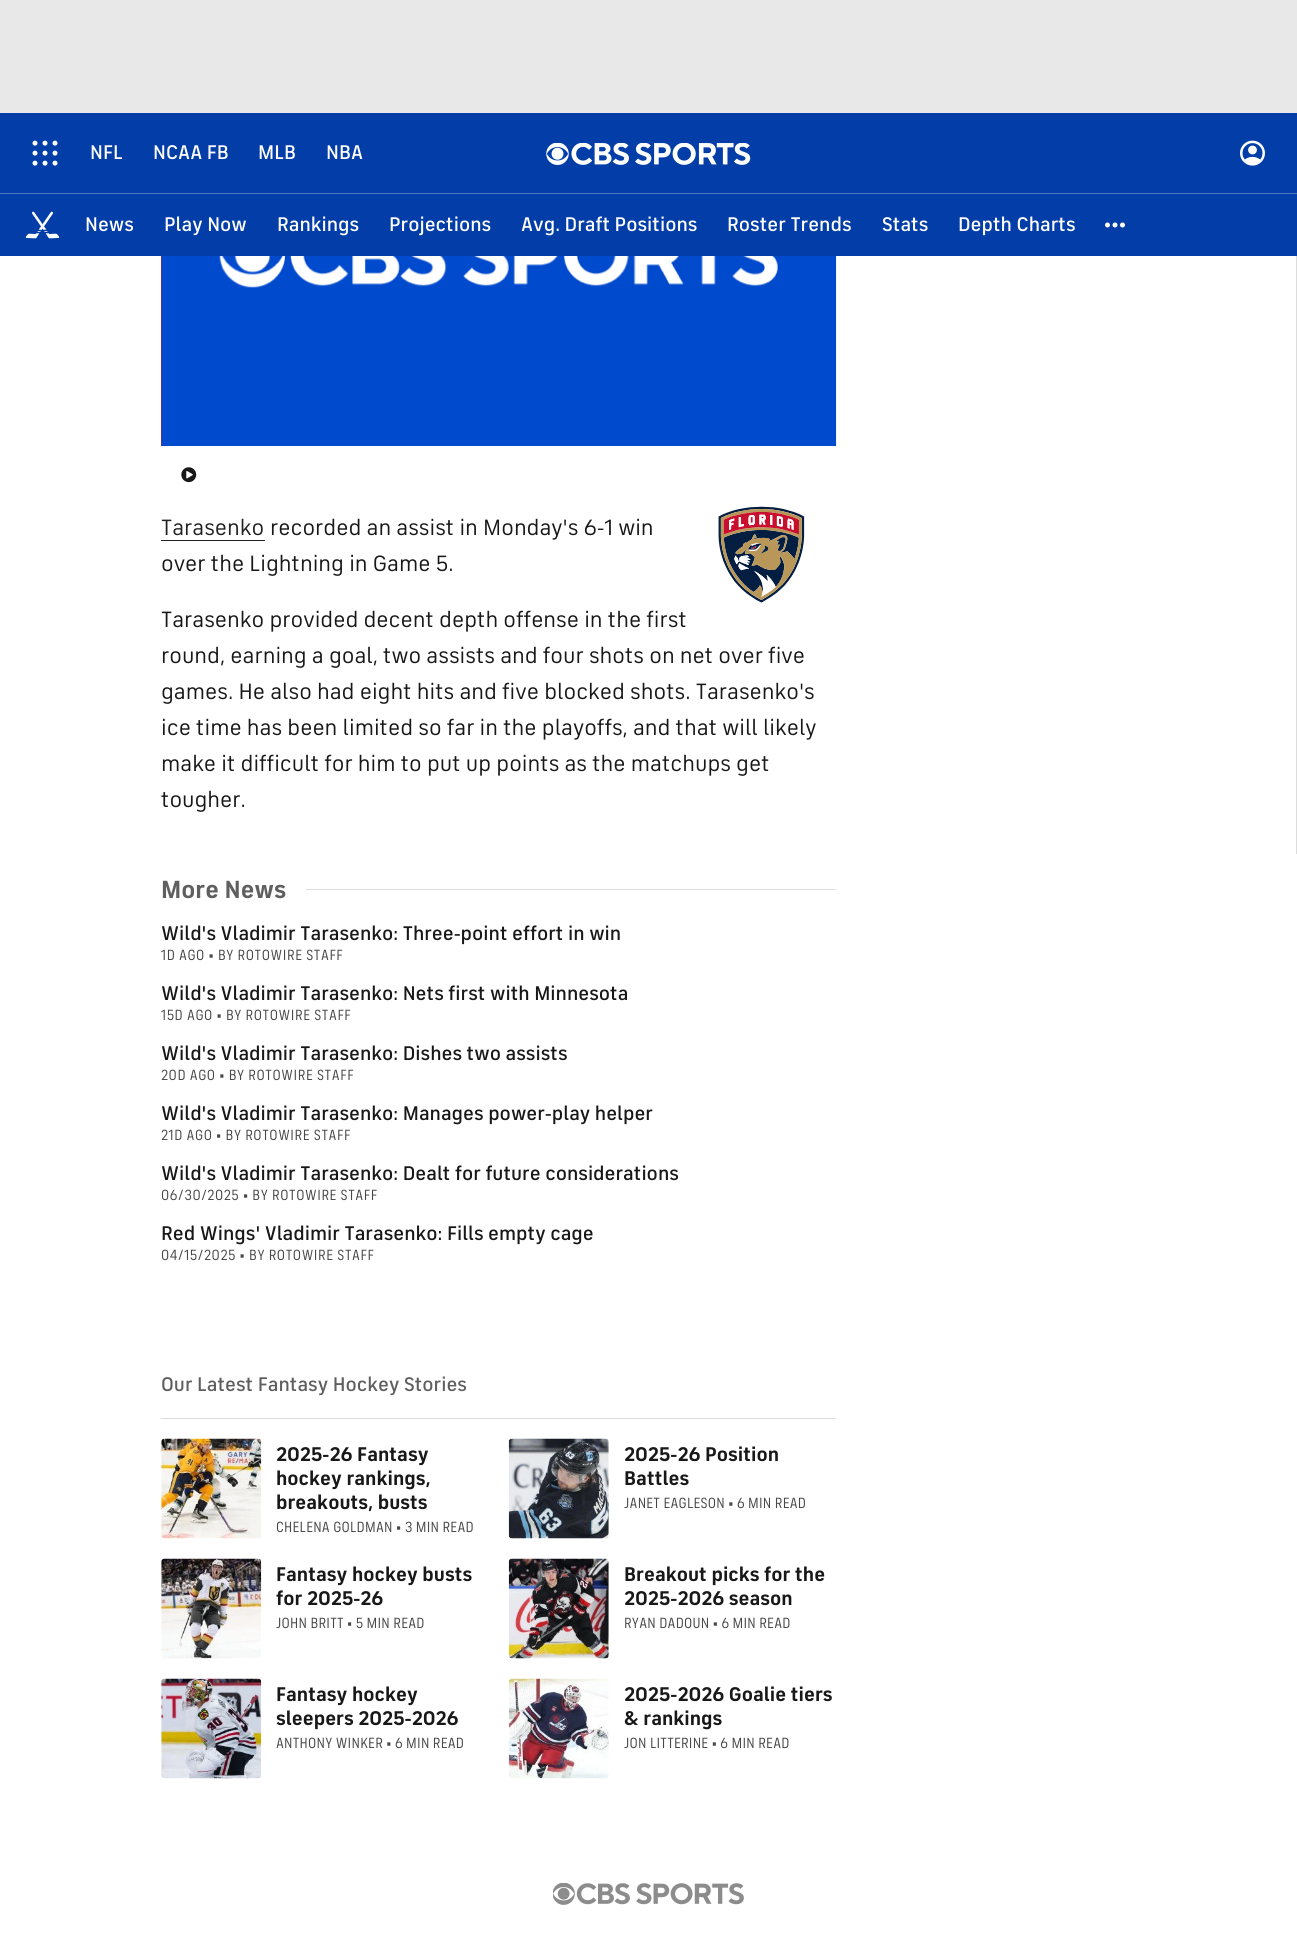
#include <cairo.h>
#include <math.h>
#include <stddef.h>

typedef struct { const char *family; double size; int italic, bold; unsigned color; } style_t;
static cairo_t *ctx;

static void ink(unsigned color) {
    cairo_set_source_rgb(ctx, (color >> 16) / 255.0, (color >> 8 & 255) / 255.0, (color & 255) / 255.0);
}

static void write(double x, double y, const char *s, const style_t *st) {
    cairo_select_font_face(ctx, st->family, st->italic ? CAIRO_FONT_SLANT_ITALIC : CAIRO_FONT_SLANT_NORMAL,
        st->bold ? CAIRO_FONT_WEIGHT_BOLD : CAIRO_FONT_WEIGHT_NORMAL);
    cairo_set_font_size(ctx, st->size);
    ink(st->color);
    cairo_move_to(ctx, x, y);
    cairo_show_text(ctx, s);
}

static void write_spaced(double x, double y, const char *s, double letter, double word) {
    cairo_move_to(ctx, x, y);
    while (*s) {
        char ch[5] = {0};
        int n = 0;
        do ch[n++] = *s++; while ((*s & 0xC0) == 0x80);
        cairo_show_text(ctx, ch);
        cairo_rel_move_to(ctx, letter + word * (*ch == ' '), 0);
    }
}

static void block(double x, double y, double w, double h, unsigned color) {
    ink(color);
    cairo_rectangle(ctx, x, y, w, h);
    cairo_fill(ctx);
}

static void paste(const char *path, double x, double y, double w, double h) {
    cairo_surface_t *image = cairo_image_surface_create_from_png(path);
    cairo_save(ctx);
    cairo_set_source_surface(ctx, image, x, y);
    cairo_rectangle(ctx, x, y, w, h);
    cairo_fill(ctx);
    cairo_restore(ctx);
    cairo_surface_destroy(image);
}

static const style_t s1 = {"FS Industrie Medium", 20, 0, 0, 0xffffff};
static const style_t s2 = {"FS Industrie", 22.5, 0, 0, 0x212121};
static const style_t s3 = {"FS Industrie", 22.5, 0, 0, 0x181818};
static const style_t s4 = {"FS Industrie", 25, 0, 1, 0x5f5f5f};
static const style_t s5 = {"FS Industrie Medium", 20, 0, 0, 0x181818};
static const style_t s6 = {"FS Industrie Medium", 20, 0, 0, 0x5f5f5f};
static const style_t s7 = {"FS Industrie", 20, 0, 1, 0x181818};

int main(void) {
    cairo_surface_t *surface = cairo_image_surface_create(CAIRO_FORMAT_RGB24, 1297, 1939);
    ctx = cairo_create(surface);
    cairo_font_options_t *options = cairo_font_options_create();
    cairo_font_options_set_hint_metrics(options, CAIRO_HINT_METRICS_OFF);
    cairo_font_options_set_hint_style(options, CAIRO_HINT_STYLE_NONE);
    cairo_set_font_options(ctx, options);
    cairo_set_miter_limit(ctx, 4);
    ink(0xffffff);
    cairo_paint(ctx);
    block(0, 0, 1297, 113, 0xe8e8e8);
    block(0, 113, 1297, 80, 0x033ea8);
    block(0, 193, 1297, 1, 0x4f78c2);
    paste("pic1.png", 32, 140, 26, 26);
    write(90, 159, "NFL", &s1);
    write(153, 159, "NCAA FB", &s1);
    write(258, 159, "MLB", &s1);
    write(326, 159, "NBA", &s1);
    paste("pic2.png", 546, 143, 23, 22);
    paste("pic3.png", 571, 143, 180, 22);
    paste("pic4.png", 1240, 140, 25, 26);
    block(0, 194, 1297, 62, 0x033ea8);
    paste("pic5.png", 25, 211, 35, 28);
    write(85, 231, "News", &s1);
    write(164, 231, "Play Now", &s1);
    write(277, 231, "Rankings", &s1);
    write(389, 231, "Projections", &s1);
    write(521, 231, "Avg. Draft Positions", &s1);
    write(727, 231, "Roster Trends", &s1);
    write(882, 231, "Stats", &s1);
    write(958, 231, "Depth Charts", &s1);
    paste("pic6.png", 1105, 222, 20, 6);
    block(161, 256, 1, 190, 0xc8102e);
    paste("pic7.png", 161, 256, 676, 190);
    paste("pic8.png", 181, 467, 16, 16);
    write(161, 535, "Tarasenko", &s2);
    block(161, 540, 104, 1, 0x212121);
    write(270, 535, "recorded an assist in Monday's 6-1 win", &s3);
    write(161, 571, "over the Lightning in Game 5.", &s3);
    paste("pic9.png", 718, 506, 87, 97);
    write(161, 627, "Tarasenko provided decent depth offense in the first", &s3);
    write(161, 663, "round, earning a goal, two assists and four shots on net over five", &s3);
    write(161, 699, "games. He also had eight hits and five blocked shots. Tarasenko's", &s3);
    write(161, 735, "ice time has been limited so far in the playoffs, and that will likely", &s3);
    write(161, 771, "make it difficult for him to put up points as the matchups get", &s3);
    write(161, 807, "tougher.", &s3);
    write(161, 898, "More News", &s4);
    block(306, 889, 530, 1, 0xdcdcdc);
    write(161, 940, "Wild's Vladimir Tarasenko: Three-point effort in win", &s5);
    cairo_select_font_face(ctx, "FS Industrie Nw", CAIRO_FONT_SLANT_NORMAL, CAIRO_FONT_WEIGHT_NORMAL);
    cairo_set_font_size(ctx, 15);
    ink(0x484848);
    write_spaced(161, 960, "1D AGO • BY ROTOWIRE STAFF", 0.6, 0);
    write(161, 1000, "Wild's Vladimir Tarasenko: Nets first with Minnesota", &s5);
    cairo_select_font_face(ctx, "FS Industrie Nw", CAIRO_FONT_SLANT_NORMAL, CAIRO_FONT_WEIGHT_NORMAL);
    cairo_set_font_size(ctx, 15);
    ink(0x484848);
    write_spaced(161, 1020, "15D AGO • BY ROTOWIRE STAFF", 0.6, 0);
    write(161, 1060, "Wild's Vladimir Tarasenko: Dishes two assists", &s5);
    cairo_select_font_face(ctx, "FS Industrie Nw", CAIRO_FONT_SLANT_NORMAL, CAIRO_FONT_WEIGHT_NORMAL);
    cairo_set_font_size(ctx, 15);
    ink(0x484848);
    write_spaced(161, 1080, "20D AGO • BY ROTOWIRE STAFF", 0.6, 0);
    write(161, 1120, "Wild's Vladimir Tarasenko: Manages power-play helper", &s5);
    cairo_select_font_face(ctx, "FS Industrie Nw", CAIRO_FONT_SLANT_NORMAL, CAIRO_FONT_WEIGHT_NORMAL);
    cairo_set_font_size(ctx, 15);
    ink(0x484848);
    write_spaced(161, 1140, "21D AGO • BY ROTOWIRE STAFF", 0.6, 0);
    write(161, 1180, "Wild's Vladimir Tarasenko: Dealt for future considerations", &s5);
    cairo_select_font_face(ctx, "FS Industrie Nw", CAIRO_FONT_SLANT_NORMAL, CAIRO_FONT_WEIGHT_NORMAL);
    cairo_set_font_size(ctx, 15);
    ink(0x484848);
    write_spaced(161, 1200, "06/30/2025 • BY ROTOWIRE STAFF", 0.6, 0);
    write(161, 1240, "Red Wings' Vladimir Tarasenko: Fills empty cage", &s5);
    cairo_select_font_face(ctx, "FS Industrie Nw", CAIRO_FONT_SLANT_NORMAL, CAIRO_FONT_WEIGHT_NORMAL);
    cairo_set_font_size(ctx, 15);
    ink(0x484848);
    write_spaced(161, 1260, "04/15/2025 • BY ROTOWIRE STAFF", 0.6, 0);
    write(161, 1391, "Our Latest Fantasy Hockey Stories", &s6);
    block(161, 1418, 675, 1, 0xdcdcdc);
    paste("pic10.png", 161, 1438, 101, 101);
    write(276, 1461, "2025-26 Fantasy", &s7);
    write(276, 1485, "hockey rankings,", &s7);
    write(276, 1509, "breakouts, busts", &s7);
    cairo_select_font_face(ctx, "FS Industrie Nw", CAIRO_FONT_SLANT_NORMAL, CAIRO_FONT_WEIGHT_NORMAL);
    cairo_set_font_size(ctx, 15);
    ink(0x484848);
    write_spaced(276, 1532, "CHELENA GOLDMAN • 3 MIN READ", 0.25, 0);
    paste("pic11.png", 508, 1438, 101, 101);
    write(624, 1461, "2025-26 Position", &s7);
    write(624, 1485, "Battles", &s7);
    cairo_select_font_face(ctx, "FS Industrie Nw", CAIRO_FONT_SLANT_NORMAL, CAIRO_FONT_WEIGHT_NORMAL);
    cairo_set_font_size(ctx, 15);
    ink(0x484848);
    write_spaced(624, 1508, "JANET EAGLESON • 6 MIN READ", 0.25, 0);
    paste("pic12.png", 161, 1558, 101, 101);
    write(276, 1581, "Fantasy hockey busts", &s7);
    write(276, 1605, "for 2025-26", &s7);
    cairo_select_font_face(ctx, "FS Industrie Nw", CAIRO_FONT_SLANT_NORMAL, CAIRO_FONT_WEIGHT_NORMAL);
    cairo_set_font_size(ctx, 15);
    ink(0x484848);
    write_spaced(276, 1628, "JOHN BRITT • 5 MIN READ", 0.25, 0);
    paste("pic13.png", 508, 1558, 101, 101);
    write(624, 1581, "Breakout picks for the", &s7);
    write(624, 1605, "2025-2026 season", &s7);
    cairo_select_font_face(ctx, "FS Industrie Nw", CAIRO_FONT_SLANT_NORMAL, CAIRO_FONT_WEIGHT_NORMAL);
    cairo_set_font_size(ctx, 15);
    ink(0x484848);
    write_spaced(624, 1628, "RYAN DADOUN • 6 MIN READ", 0.25, 0);
    paste("pic14.png", 161, 1678, 101, 101);
    write(276, 1701, "Fantasy hockey", &s7);
    write(276, 1725, "sleepers 2025-2026", &s7);
    cairo_select_font_face(ctx, "FS Industrie Nw", CAIRO_FONT_SLANT_NORMAL, CAIRO_FONT_WEIGHT_NORMAL);
    cairo_set_font_size(ctx, 15);
    ink(0x484848);
    write_spaced(276, 1748, "ANTHONY WINKER • 6 MIN READ", 0.25, 0);
    paste("pic15.png", 508, 1678, 101, 101);
    write(624, 1701, "2025-2026 Goalie tiers", &s7);
    write(624, 1725, "& rankings", &s7);
    cairo_select_font_face(ctx, "FS Industrie Nw", CAIRO_FONT_SLANT_NORMAL, CAIRO_FONT_WEIGHT_NORMAL);
    cairo_set_font_size(ctx, 15);
    ink(0x484848);
    write_spaced(624, 1748, "JON LITTERINE • 6 MIN READ", 0.25, 0);
    block(1296, 256, 1, 598, 0xdcdcdc);
    paste("pic16.png", 553, 1883, 191, 22);
    cairo_surface_write_to_png(surface, "screenshot.png");
    cairo_font_options_destroy(options);
    cairo_destroy(ctx);
    cairo_surface_destroy(surface);
    return 0;
}
